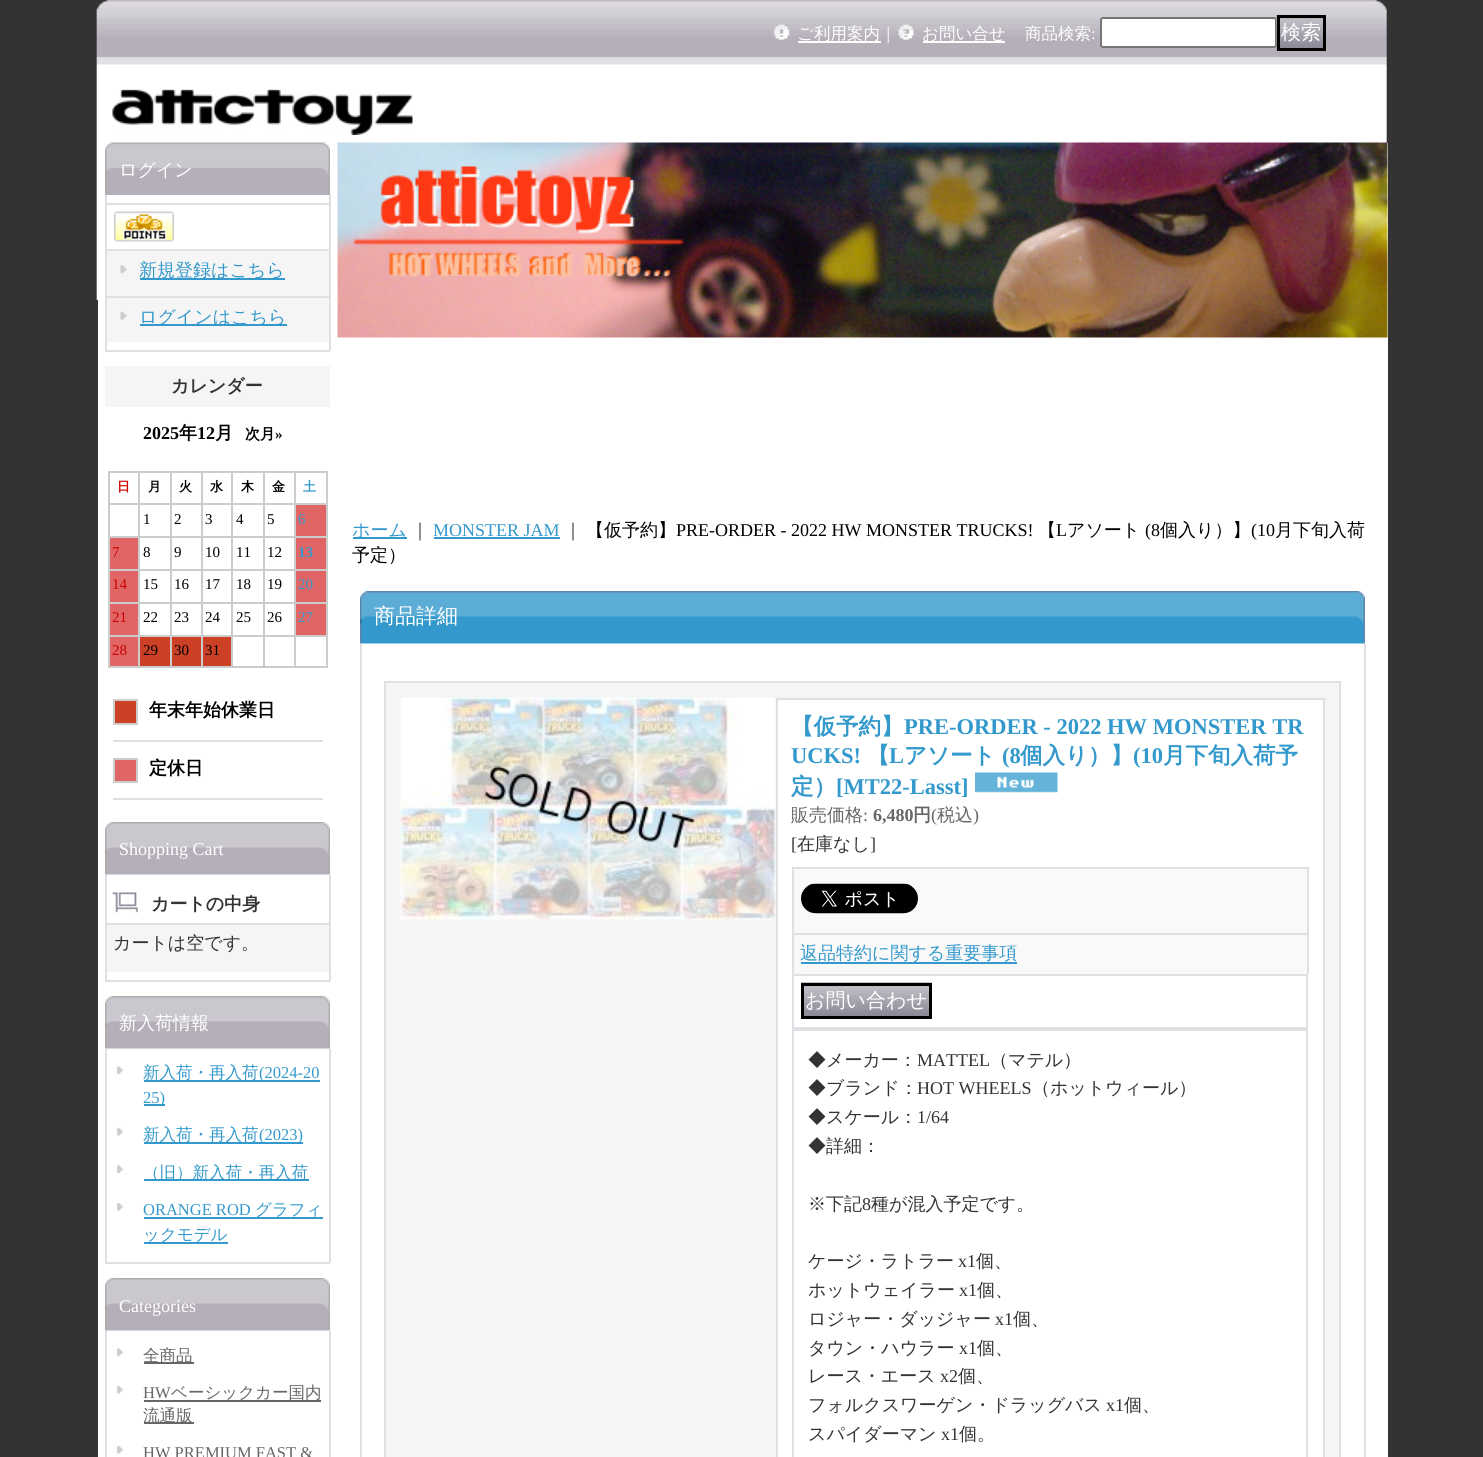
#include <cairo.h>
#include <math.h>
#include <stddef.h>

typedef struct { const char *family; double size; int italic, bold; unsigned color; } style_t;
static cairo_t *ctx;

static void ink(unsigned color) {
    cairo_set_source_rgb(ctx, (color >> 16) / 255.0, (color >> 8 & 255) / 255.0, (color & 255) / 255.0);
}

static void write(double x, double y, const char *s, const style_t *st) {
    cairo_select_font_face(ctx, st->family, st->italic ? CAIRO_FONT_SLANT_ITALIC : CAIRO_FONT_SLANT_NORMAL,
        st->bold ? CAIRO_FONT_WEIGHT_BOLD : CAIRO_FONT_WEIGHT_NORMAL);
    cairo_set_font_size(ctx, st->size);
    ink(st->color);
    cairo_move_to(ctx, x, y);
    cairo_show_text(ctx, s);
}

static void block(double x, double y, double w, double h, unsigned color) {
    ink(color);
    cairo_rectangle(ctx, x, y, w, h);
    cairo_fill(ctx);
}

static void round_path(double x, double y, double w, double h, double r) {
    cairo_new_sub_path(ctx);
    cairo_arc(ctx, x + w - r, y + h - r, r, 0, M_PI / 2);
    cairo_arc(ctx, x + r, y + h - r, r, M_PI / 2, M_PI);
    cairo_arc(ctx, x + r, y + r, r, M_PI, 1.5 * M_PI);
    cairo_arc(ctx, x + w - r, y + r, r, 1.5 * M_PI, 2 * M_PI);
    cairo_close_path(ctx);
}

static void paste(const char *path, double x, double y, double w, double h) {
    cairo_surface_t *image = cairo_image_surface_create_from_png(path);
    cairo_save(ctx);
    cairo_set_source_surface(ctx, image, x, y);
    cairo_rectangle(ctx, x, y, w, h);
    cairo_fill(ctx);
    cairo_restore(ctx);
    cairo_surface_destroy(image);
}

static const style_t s1 = {"WenQuanYi Zen Hei Medium", 16.5, 0, 0, 0xffffff};
static const style_t s2 = {"Liberation Serif", 16.5, 0, 0, 0xffffff};
static const style_t s3 = {"WenQuanYi Zen Hei Medium", 20, 0, 0, 0xffffff};
static const style_t s4 = {"WenQuanYi Zen Hei Medium", 18, 0, 0, 0xffffff};
static const style_t s5 = {"WenQuanYi Zen Hei Medium", 18, 0, 0, 0x3399cc};
static const style_t s6 = {"WenQuanYi Zen Hei", 18, 0, 1, 0x333333};
static const style_t s7 = {"Liberation Serif", 18, 0, 1, 0x000000};
static const style_t s8 = {"WenQuanYi Zen Hei", 18, 0, 1, 0x000000};
static const style_t s9 = {"WenQuanYi Zen Hei", 15, 0, 1, 0x000000};
static const style_t s10 = {"Liberation Serif", 15, 0, 1, 0x000000};
static const style_t s11 = {"WenQuanYi Zen Hei", 13, 0, 1, 0xcc0000};
static const style_t s12 = {"WenQuanYi Zen Hei", 13, 0, 1, 0x000000};
static const style_t s13 = {"WenQuanYi Zen Hei", 13, 0, 1, 0x3399cc};
static const style_t s14 = {"Liberation Serif", 15, 0, 0, 0x000000};
static const style_t s15 = {"Liberation Serif", 15, 0, 0, 0x3399cc};
static const style_t s16 = {"Liberation Serif", 15, 0, 0, 0xcc0000};
static const style_t s17 = {"Liberation Serif", 15, 0, 1, 0x3399cc};
static const style_t s18 = {"Liberation Serif", 18, 0, 0, 0xffffff};
static const style_t s19 = {"WenQuanYi Zen Hei Medium", 18, 0, 0, 0x333333};
static const style_t s20 = {"WenQuanYi Zen Hei Medium", 16.5, 0, 0, 0x3399cc};
static const style_t s21 = {"Liberation Serif", 16.5, 0, 0, 0x3399cc};
static const style_t s22 = {"WenQuanYi Zen Hei Medium", 16.5, 0, 0, 0x666666};
static const style_t s23 = {"Liberation Serif", 16.5, 0, 0, 0x666666};
static const style_t s24 = {"Liberation Serif", 18, 0, 0, 0x3399cc};
static const style_t s25 = {"WenQuanYi Zen Hei Medium", 18, 0, 0, 0x000000};
static const style_t s26 = {"Liberation Serif", 18, 0, 0, 0x000000};
static const style_t s27 = {"WenQuanYi Zen Hei Medium", 21, 0, 0, 0xffffff};
static const style_t s28 = {"WenQuanYi Zen Hei", 22.5, 0, 1, 0x3399cc};
static const style_t s29 = {"Liberation Serif", 22.5, 0, 1, 0x3399cc};
static const style_t s30 = {"WenQuanYi Zen Hei Medium", 18, 0, 0, 0x666666};
static const style_t s31 = {"Liberation Serif", 18, 0, 0, 0x666666};
static const style_t s32 = {"Liberation Serif", 18, 0, 1, 0x666666};
static const style_t s33 = {"WenQuanYi Zen Hei", 18, 0, 1, 0x666666};
static const style_t s34 = {"Liberation Serif", 18, 0, 0, 0x333333};

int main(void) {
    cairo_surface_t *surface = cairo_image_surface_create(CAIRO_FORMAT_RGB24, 1483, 1457);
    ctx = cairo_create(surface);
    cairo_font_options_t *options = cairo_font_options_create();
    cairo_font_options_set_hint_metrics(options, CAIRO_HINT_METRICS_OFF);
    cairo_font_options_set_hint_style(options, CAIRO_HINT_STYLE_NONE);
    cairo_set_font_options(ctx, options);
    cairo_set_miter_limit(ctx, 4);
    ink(0x333333);
    cairo_paint(ctx);
    paste("pic1.png", 96, 0, 1291, 300);
    block(98, 143, 1290, 1314, 0xffffff);
    paste("pic2.png", 337, 142, 1051, 196);
    paste("pic3.png", 773, 24, 17, 16);
    block(798, 41, 83, 2, 0xffffff);
    write(797, 39, "ご利用案内｜", &s1);
    paste("pic4.png", 898, 24, 16, 16);
    block(923, 41, 82, 2, 0xffffff);
    write(922, 39, "お問い合せ", &s1);
    write(1025, 39, "商品検索", &s1);
    write(1091, 39, ":", &s2);
    round_path(1101, 18, 175, 29, 2);
    cairo_fill_preserve(ctx);
    ink(0x767676);
    cairo_stroke(ctx);
    paste("pic5.png", 1276, 15, 47, 36);
    cairo_rectangle(ctx, 1278.5, 16.5, 46, 33);
    ink(0x000000);
    cairo_set_line_width(ctx, 3);
    cairo_stroke(ctx);
    write(1281, 39, "検索", &s3);
    paste("pic6.png", 112, 89, 301, 46);
    paste("pic7.png", 105, 142, 225, 53);
    write(119, 176, "ログイン", &s4);
    block(329, 195, 2, 156, 0xe0dfe3);
    block(105, 350, 225, 2, 0xe0dfe3);
    block(105, 195, 2, 156, 0xe0dfe3);
    block(107, 203, 222, 2, 0xe0dfe3);
    paste("pic8.png", 114, 211, 60, 31);
    block(107, 251, 222, 45, 0xf5f5f5);
    block(107, 249, 222, 2, 0xe0dfe3);
    paste("pic9.png", 120, 265, 7, 9);
    block(140, 278, 145, 2, 0x3399cc);
    write(139, 276, "新規登録はこちら", &s5);
    block(107, 298, 222, 44, 0xf5f5f5);
    block(107, 296, 222, 2, 0xe0dfe3);
    paste("pic10.png", 120, 311, 8, 9);
    block(140, 324, 147, 2, 0x3399cc);
    write(139, 323, "ログインはこちら", &s5);
    block(105, 366, 225, 41, 0xf5f5f5);
    write(171, 392, "カレンダー", &s6);
    write(143, 439, "2025", &s7);
    write(179, 439, "年", &s8);
    write(197, 439, "12", &s7);
    write(215, 439, "月", &s8);
    write(245, 439, "次月", &s9);
    write(275, 439, "»", &s10);
    block(294, 471, 33, 2, 0xcccccc);
    block(294, 503, 33, 2, 0xcccccc);
    block(294, 536, 33, 2, 0xcccccc);
    block(294, 569, 33, 2, 0xcccccc);
    block(294, 602, 33, 2, 0xcccccc);
    block(294, 635, 33, 2, 0xcccccc);
    block(326, 635, 2, 33, 0xcccccc);
    block(294, 666, 33, 2, 0xcccccc);
    block(294, 635, 2, 33, 0xcccccc);
    block(263, 635, 33, 2, 0xcccccc);
    block(294, 602, 2, 34, 0xcccccc);
    block(263, 602, 33, 2, 0xcccccc);
    block(294, 569, 2, 34, 0xcccccc);
    block(263, 569, 33, 2, 0xcccccc);
    block(294, 536, 2, 34, 0xcccccc);
    block(263, 536, 33, 2, 0xcccccc);
    block(294, 503, 2, 34, 0xcccccc);
    block(263, 503, 33, 2, 0xcccccc);
    block(294, 471, 2, 33, 0xcccccc);
    block(263, 471, 33, 2, 0xcccccc);
    block(263, 666, 33, 2, 0xcccccc);
    block(263, 635, 2, 33, 0xcccccc);
    block(231, 635, 33, 2, 0xcccccc);
    block(263, 602, 2, 34, 0xcccccc);
    block(231, 602, 33, 2, 0xcccccc);
    block(263, 569, 2, 34, 0xcccccc);
    block(231, 569, 33, 2, 0xcccccc);
    block(263, 536, 2, 34, 0xcccccc);
    block(231, 536, 33, 2, 0xcccccc);
    block(263, 503, 2, 34, 0xcccccc);
    block(231, 503, 33, 2, 0xcccccc);
    block(263, 471, 2, 33, 0xcccccc);
    block(231, 471, 33, 2, 0xcccccc);
    block(231, 666, 33, 2, 0xcccccc);
    block(231, 635, 2, 33, 0xcccccc);
    block(201, 635, 32, 2, 0xcccccc);
    block(231, 602, 2, 34, 0xcccccc);
    block(201, 602, 32, 2, 0xcccccc);
    block(231, 569, 2, 34, 0xcccccc);
    block(201, 569, 32, 2, 0xcccccc);
    block(231, 536, 2, 34, 0xcccccc);
    block(201, 536, 32, 2, 0xcccccc);
    block(231, 503, 2, 34, 0xcccccc);
    block(201, 503, 32, 2, 0xcccccc);
    block(231, 471, 2, 33, 0xcccccc);
    block(201, 471, 32, 2, 0xcccccc);
    block(201, 666, 32, 2, 0xcccccc);
    block(201, 635, 2, 33, 0xcccccc);
    block(170, 635, 33, 2, 0xcccccc);
    block(201, 602, 2, 34, 0xcccccc);
    block(170, 602, 33, 2, 0xcccccc);
    block(201, 569, 2, 34, 0xcccccc);
    block(170, 569, 33, 2, 0xcccccc);
    block(201, 536, 2, 34, 0xcccccc);
    block(170, 536, 33, 2, 0xcccccc);
    block(201, 503, 2, 34, 0xcccccc);
    block(170, 503, 33, 2, 0xcccccc);
    block(201, 471, 2, 33, 0xcccccc);
    block(170, 471, 33, 2, 0xcccccc);
    block(170, 666, 33, 2, 0xcccccc);
    block(170, 635, 2, 33, 0xcccccc);
    block(138, 635, 33, 2, 0xcccccc);
    block(170, 602, 2, 34, 0xcccccc);
    block(138, 602, 33, 2, 0xcccccc);
    block(170, 569, 2, 34, 0xcccccc);
    block(138, 569, 33, 2, 0xcccccc);
    block(170, 536, 2, 34, 0xcccccc);
    block(138, 536, 33, 2, 0xcccccc);
    block(170, 503, 2, 34, 0xcccccc);
    block(138, 503, 33, 2, 0xcccccc);
    block(170, 471, 2, 33, 0xcccccc);
    block(138, 471, 33, 2, 0xcccccc);
    block(138, 666, 33, 2, 0xcccccc);
    block(138, 635, 2, 33, 0xcccccc);
    block(108, 635, 32, 2, 0xcccccc);
    block(138, 602, 2, 34, 0xcccccc);
    block(108, 602, 32, 2, 0xcccccc);
    block(138, 569, 2, 34, 0xcccccc);
    block(108, 569, 32, 2, 0xcccccc);
    block(138, 536, 2, 34, 0xcccccc);
    block(108, 536, 32, 2, 0xcccccc);
    block(138, 503, 2, 34, 0xcccccc);
    block(108, 503, 32, 2, 0xcccccc);
    block(138, 471, 2, 33, 0xcccccc);
    block(108, 471, 32, 2, 0xcccccc);
    block(108, 666, 32, 2, 0xcccccc);
    block(108, 635, 2, 33, 0xcccccc);
    block(108, 602, 2, 34, 0xcccccc);
    block(108, 569, 2, 34, 0xcccccc);
    block(108, 536, 2, 34, 0xcccccc);
    block(108, 503, 2, 34, 0xcccccc);
    block(108, 471, 2, 33, 0xcccccc);
    write(117, 491, "日", &s11);
    write(148, 491, "月", &s12);
    write(179, 491, "火", &s12);
    write(210, 491, "水", &s12);
    write(241, 491, "木", &s12);
    write(272, 491, "金", &s12);
    block(326, 602, 2, 34, 0xcccccc);
    block(326, 569, 2, 34, 0xcccccc);
    block(326, 536, 2, 34, 0xcccccc);
    block(326, 503, 2, 34, 0xcccccc);
    block(326, 471, 2, 33, 0xcccccc);
    write(303, 491, "土", &s13);
    write(143, 524, "1", &s14);
    write(174, 524, "2", &s14);
    write(205, 524, "3", &s14);
    write(236, 524, "4", &s14);
    write(267, 524, "5", &s14);
    block(296, 505, 30, 31, 0xe06666);
    write(298, 524, "6", &s15);
    block(110, 538, 28, 31, 0xe06666);
    write(112, 557, "7", &s16);
    write(143, 557, "8", &s14);
    write(174, 557, "9", &s14);
    write(205, 557, "10", &s14);
    write(236, 557, "11", &s14);
    write(267, 557, "12", &s14);
    block(296, 538, 30, 31, 0xe06666);
    write(298, 557, "13", &s17);
    block(110, 571, 28, 31, 0xe06666);
    write(112, 589, "14", &s16);
    write(143, 589, "15", &s14);
    write(174, 589, "16", &s14);
    write(205, 589, "17", &s14);
    write(236, 589, "18", &s14);
    write(267, 589, "19", &s14);
    block(296, 571, 30, 31, 0xe06666);
    write(298, 589, "20", &s15);
    block(110, 604, 28, 31, 0xe06666);
    write(112, 622, "21", &s16);
    write(143, 622, "22", &s14);
    write(174, 622, "23", &s14);
    write(205, 622, "24", &s14);
    write(236, 622, "25", &s14);
    write(267, 622, "26", &s14);
    block(296, 604, 30, 31, 0xe06666);
    write(298, 622, "27", &s15);
    block(110, 637, 28, 29, 0xe06666);
    write(112, 655, "28", &s16);
    block(140, 637, 30, 29, 0xcc4125);
    write(143, 655, "29", &s14);
    block(172, 637, 29, 29, 0xcc4125);
    write(174, 655, "30", &s14);
    block(203, 637, 28, 29, 0xcc4125);
    write(205, 655, "31", &s14);
    block(113, 740, 210, 2, 0xe0dfe3);
    ink(0xcc4125);
    cairo_rectangle(ctx, 114, 700, 23, 24);
    cairo_fill_preserve(ctx);
    ink(0xcccccc);
    cairo_set_line_width(ctx, 2);
    cairo_stroke(ctx);
    write(149, 716, "年末年始休業日", &s8);
    block(113, 798, 210, 2, 0xe0dfe3);
    ink(0xe06666);
    cairo_rectangle(ctx, 114, 759, 23, 23);
    cairo_fill_preserve(ctx);
    ink(0xcccccc);
    cairo_stroke(ctx);
    write(149, 774, "定休日", &s8);
    paste("pic11.png", 105, 822, 225, 53);
    write(119, 855, "Shopping Cart", &s18);
    block(329, 875, 2, 106, 0xe0dfe3);
    block(105, 980, 225, 2, 0xe0dfe3);
    block(105, 875, 2, 106, 0xe0dfe3);
    paste("pic12.png", 112, 892, 26, 21);
    write(151, 910, "カートの中身", &s6);
    block(107, 925, 222, 47, 0xf5f5f5);
    block(107, 923, 222, 2, 0xe0dfe3);
    write(113, 949, "カートは空です。", &s19);
    paste("pic11.png", 105, 996, 225, 53);
    write(119, 1029, "新入荷情報", &s4);
    block(329, 1049, 2, 214, 0xe0dfe3);
    block(105, 1262, 225, 2, 0xe0dfe3);
    block(105, 1049, 2, 214, 0xe0dfe3);
    paste("pic13.png", 116, 1066, 8, 9);
    block(144, 1080, 176, 2, 0x3399cc);
    write(143, 1078, "新入荷・再入荷", &s20);
    write(259, 1078, "(2024-20", &s21);
    block(144, 1104, 21, 2, 0x3399cc);
    write(143, 1103, "25)", &s21);
    paste("pic14.png", 116, 1127, 8, 9);
    block(144, 1142, 159, 2, 0x3399cc);
    write(143, 1140, "新入荷・再入荷", &s20);
    write(259, 1140, "(2023)", &s21);
    paste("pic13.png", 116, 1165, 8, 9);
    block(144, 1179, 165, 2, 0x3399cc);
    write(143, 1178, "（旧）新入荷・再入荷", &s20);
    paste("pic14.png", 116, 1202, 8, 9);
    write(143, 1215, "ORANGE ROD", &s21);
    block(144, 1217, 179, 2, 0x3399cc);
    write(255, 1215, "グラフィ", &s20);
    block(144, 1242, 84, 2, 0x3399cc);
    write(143, 1240, "ックモデル", &s20);
    paste("pic11.png", 105, 1278, 225, 53);
    write(119, 1312, "Categories", &s18);
    block(329, 1331, 2, 126, 0xe0dfe3);
    block(105, 1331, 2, 126, 0xe0dfe3);
    paste("pic13.png", 116, 1348, 8, 9);
    block(144, 1362, 50, 2, 0x666666);
    write(143, 1361, "全商品", &s22);
    paste("pic14.png", 116, 1385, 8, 9);
    write(143, 1398, "HW", &s23);
    block(144, 1400, 177, 2, 0x666666);
    write(171, 1398, "ベーシックカー国内", &s22);
    block(144, 1422, 50, 2, 0x666666);
    write(143, 1421, "流通版", &s22);
    paste("pic14.png", 116, 1445, 8, 9);
    write(143, 1458, "HW PREMIUM FAST &", &s23);
    block(353, 537, 54, 2, 0x3399cc);
    write(352, 536, "ホーム", &s5);
    write(411, 536, "｜", &s19);
    write(433, 536, "MONSTER JAM", &s24);
    block(434, 537, 126, 2, 0x3399cc);
    write(564, 536, "｜", &s19);
    write(586, 536, "【仮予約】", &s25);
    write(676, 536, "PRE-ORDER - 2022 HW MONSTER TRUCKS!", &s26);
    write(1038, 536, "【", &s25);
    write(1056, 536, "L", &s26);
    write(1067, 536, "アソート", &s25);
    write(1145, 536, "(8", &s26);
    write(1160, 536, "個入り）】", &s25);
    write(1251, 536, "(10", &s26);
    write(1275, 536, "月下旬入荷", &s25);
    write(352, 561, "予定）", &s25);
    paste("pic15.png", 360, 591, 1005, 53);
    write(374, 623, "商品詳細", &s27);
    block(1364, 644, 2, 813, 0xe0dfe3);
    block(360, 644, 2, 813, 0xe0dfe3);
    ink(0xf5f5f5);
    cairo_rectangle(ctx, 385, 682, 955, 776);
    cairo_fill_preserve(ctx);
    ink(0xe0dfe3);
    cairo_stroke(ctx);
    paste("pic16.png", 400, 697, 376, 223);
    ink(0xffffff);
    cairo_rectangle(ctx, 777, 699, 547, 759);
    cairo_fill_preserve(ctx);
    ink(0xe0dfe3);
    cairo_stroke(ctx);
    write(791, 734, "【仮予約】", &s28);
    write(904, 734, "PRE-ORDER - 2022 HW MONSTER TR", &s29);
    write(791, 763, "UCKS!", &s29);
    write(867, 763, "【", &s28);
    write(889, 763, "L", &s29);
    write(904, 763, "アソート", &s28);
    write(1002, 763, "(8", &s29);
    write(1020, 763, "個入り）】", &s28);
    write(1133, 763, "(10", &s29);
    write(1163, 763, "月下旬入荷予", &s28);
    write(791, 794, "定）", &s28);
    write(836, 794, "[MT22-Lasst]", &s29);
    paste("pic17.png", 975, 772, 83, 21);
    write(791, 821, "販売価格", &s30);
    write(863, 821, ":", &s31);
    write(873, 821, "6,480", &s32);
    write(913, 821, "円", &s33);
    write(931, 821, "(", &s31);
    write(937, 821, "税込", &s30);
    write(973, 821, ")", &s31);
    write(791, 850, "[", &s34);
    write(797, 850, "在庫なし", &s19);
    write(870, 850, "]", &s34);
    block(794, 869, 513, 64, 0xf9f9f9);
    block(792, 867, 516, 2, 0xe0dfe3);
    block(1307, 867, 2, 66, 0xe0dfe3);
    block(792, 867, 2, 66, 0xe0dfe3);
    paste("pic18.png", 801, 883, 117, 31);
    block(794, 935, 513, 39, 0xf9f9f9);
    block(792, 933, 516, 2, 0xe0dfe3);
    block(1307, 933, 2, 41, 0xe0dfe3);
    block(792, 933, 2, 41, 0xe0dfe3);
    block(801, 962, 216, 2, 0x3399cc);
    write(800, 959, "返品特約に関する重要事項", &s5);
    cairo_rectangle(ctx, 793, 975, 514, 53);
    ink(0xe0dfe3);
    cairo_stroke(ctx);
    paste("pic19.png", 801, 982, 131, 34);
    cairo_rectangle(ctx, 802.5, 984.5, 128, 33);
    ink(0x000000);
    cairo_set_line_width(ctx, 3);
    cairo_stroke(ctx);
    write(805, 1007, "お問い合わせ", &s3);
    cairo_rectangle(ctx, 793, 1030, 514, 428);
    ink(0xe0dfe3);
    cairo_set_line_width(ctx, 2);
    cairo_stroke(ctx);
    write(808, 1066, "◆メーカー：", &s19);
    write(917, 1066, "MATTEL", &s34);
    write(990, 1066, "（マテル）", &s19);
    write(808, 1094, "◆ブランド：", &s19);
    write(917, 1094, "HOT WHEELS", &s34);
    write(1032, 1094, "（ホットウィール）", &s19);
    write(808, 1123, "◆スケール：", &s19);
    write(917, 1123, "1/64", &s34);
    write(808, 1152, "◆詳細：", &s19);
    write(808, 1210, "※下記", &s19);
    write(862, 1210, "8", &s34);
    write(871, 1210, "種が混入予定です。", &s19);
    write(808, 1267, "ケージ・ラトラー", &s19);
    write(958, 1267, "x1", &s34);
    write(976, 1267, "個、", &s19);
    write(808, 1296, "ホットウェイラー", &s19);
    write(959, 1296, "x1", &s34);
    write(977, 1296, "個、", &s19);
    write(808, 1325, "ロジャー・ダッジャー", &s19);
    write(995, 1325, "x1", &s34);
    write(1013, 1325, "個、", &s19);
    write(808, 1354, "タウン・ハウラー", &s19);
    write(959, 1354, "x1", &s34);
    write(977, 1354, "個、", &s19);
    write(808, 1382, "レース・エース", &s19);
    write(940, 1382, "x2", &s34);
    write(958, 1382, "個、", &s19);
    write(808, 1411, "フォルクスワーゲン・ドラッグバス", &s19);
    write(1106, 1411, "x1", &s34);
    write(1124, 1411, "個、", &s19);
    write(808, 1440, "スパイダーマン", &s19);
    write(941, 1440, "x1", &s34);
    write(959, 1440, "個。", &s19);
    cairo_surface_write_to_png(surface, "screenshot.png");
    cairo_font_options_destroy(options);
    cairo_destroy(ctx);
    cairo_surface_destroy(surface);
    return 0;
}
